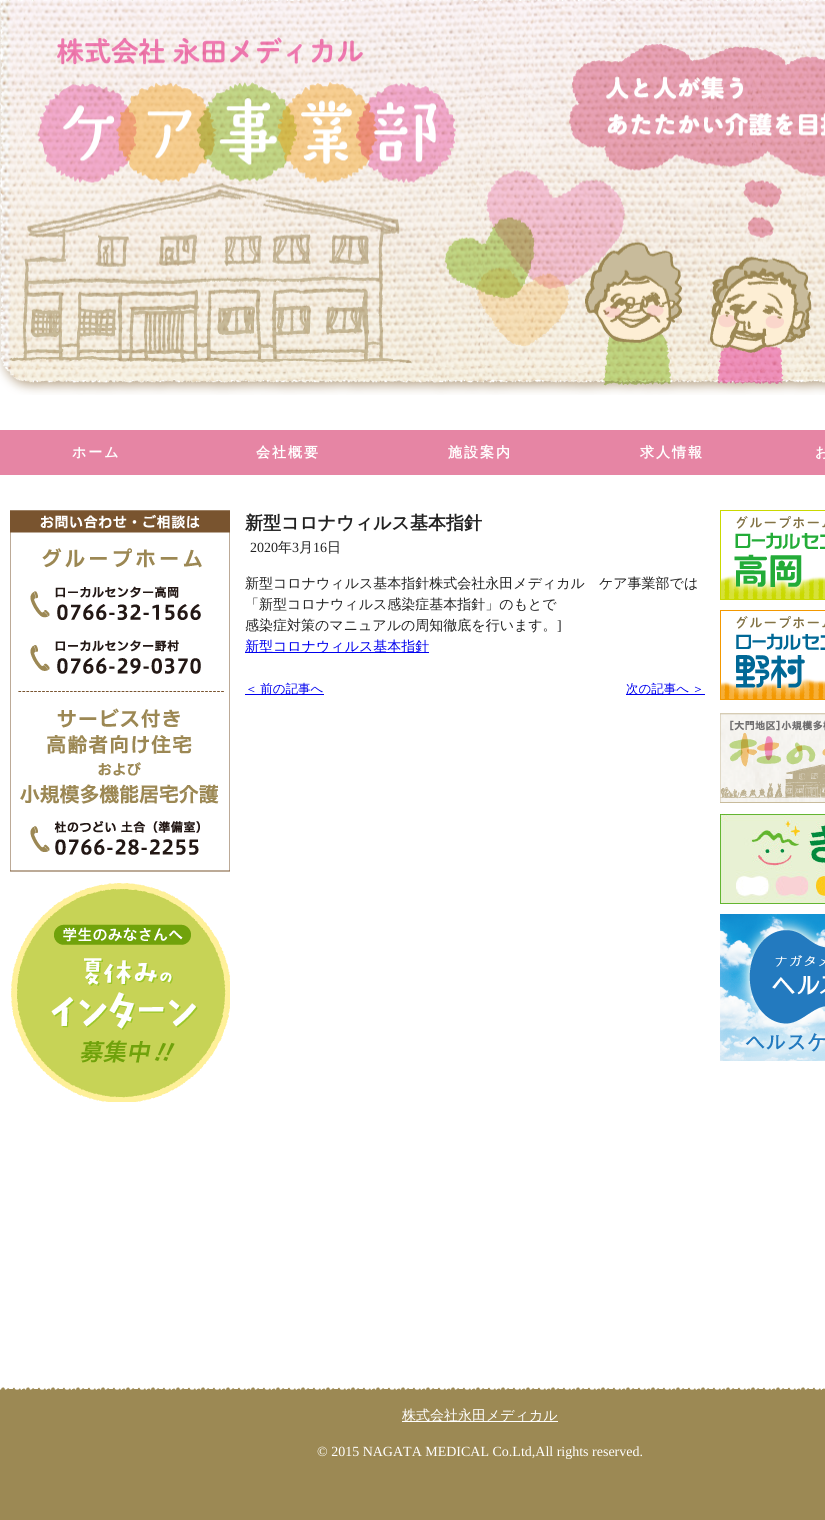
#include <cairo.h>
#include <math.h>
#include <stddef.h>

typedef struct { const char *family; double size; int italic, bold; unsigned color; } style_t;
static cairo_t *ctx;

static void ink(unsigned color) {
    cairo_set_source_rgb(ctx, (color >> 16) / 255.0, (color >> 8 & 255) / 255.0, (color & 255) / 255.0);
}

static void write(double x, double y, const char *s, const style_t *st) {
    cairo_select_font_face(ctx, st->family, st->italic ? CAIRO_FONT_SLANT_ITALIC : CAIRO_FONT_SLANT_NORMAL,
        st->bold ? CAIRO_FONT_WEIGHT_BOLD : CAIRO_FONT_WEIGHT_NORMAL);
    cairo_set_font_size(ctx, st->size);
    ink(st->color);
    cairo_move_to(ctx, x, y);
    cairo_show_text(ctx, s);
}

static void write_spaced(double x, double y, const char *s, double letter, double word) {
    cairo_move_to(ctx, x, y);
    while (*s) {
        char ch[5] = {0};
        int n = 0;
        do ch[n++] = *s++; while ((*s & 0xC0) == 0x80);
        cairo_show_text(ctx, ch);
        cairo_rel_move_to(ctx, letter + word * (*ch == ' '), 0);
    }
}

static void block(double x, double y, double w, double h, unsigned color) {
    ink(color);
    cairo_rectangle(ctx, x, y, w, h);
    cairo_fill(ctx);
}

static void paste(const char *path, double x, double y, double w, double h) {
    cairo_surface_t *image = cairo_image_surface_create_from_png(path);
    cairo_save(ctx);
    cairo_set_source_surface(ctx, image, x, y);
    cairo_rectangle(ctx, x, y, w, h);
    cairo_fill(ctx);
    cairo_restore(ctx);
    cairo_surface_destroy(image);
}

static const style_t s1 = {"WenQuanYi Zen Hei", 18, 0, 1, 0x222222};
static const style_t s2 = {"Liberation Serif", 14, 0, 0, 0x222222};
static const style_t s3 = {"WenQuanYi Zen Hei Medium", 14, 0, 0, 0x222222};
static const style_t s4 = {"WenQuanYi Zen Hei Medium", 14, 0, 0, 0x0000ee};
static const style_t s5 = {"WenQuanYi Zen Hei Medium", 14, 0, 0, 0xffffff};
static const style_t s6 = {"Liberation Serif", 14, 0, 0, 0xffffff};

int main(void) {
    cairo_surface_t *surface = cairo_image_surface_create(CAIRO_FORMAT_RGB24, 825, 1520);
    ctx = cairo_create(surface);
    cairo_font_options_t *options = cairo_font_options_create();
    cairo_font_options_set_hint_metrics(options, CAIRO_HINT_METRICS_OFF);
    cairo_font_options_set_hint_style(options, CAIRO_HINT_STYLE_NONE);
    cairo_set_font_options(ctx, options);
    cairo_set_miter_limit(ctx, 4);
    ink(0xffffff);
    cairo_paint(ctx);
    paste("pic1.png", 0, 0, 825, 395);
    block(0, 430, 384, 45, 0xe685a4);
    cairo_select_font_face(ctx, "WenQuanYi Zen Hei", CAIRO_FONT_SLANT_NORMAL, CAIRO_FONT_WEIGHT_BOLD);
    cairo_set_font_size(ctx, 14);
    ink(0xffffff);
    write_spaced(72, 457, "ホーム", 2, 0);
    write_spaced(256, 457, "会社概要", 2, 0);
    block(384, 430, 441, 45, 0xe685a4);
    ink(0xffffff);
    write_spaced(448, 457, "施設案内", 2, 0);
    write_spaced(640, 457, "求人情報", 2, 0);
    write_spaced(815, 457, "お", 2, 0);
    paste("pic2.png", 10, 510, 220, 362);
    paste("pic3.png", 11, 883, 219, 219);
    write(245, 529, "新型コロナウィルス基本指針", &s1);
    write(250, 552, "2020", &s2);
    write(278, 552, "年", &s3);
    write(292, 552, "3", &s2);
    write(299, 552, "月", &s3);
    write(313, 552, "16", &s2);
    write(327, 552, "日", &s3);
    write(245, 588, "新型コロナウィルス基本指針株式会社永田メディカル　ケア事業部では", &s3);
    write(245, 609, "「新型コロナウィルス感染症基本指針」のもとで", &s3);
    write(245, 630, "感染症対策のマニュアルの周知徹底を行います。", &s3);
    write(557, 630, "]", &s2);
    block(245, 652, 184, 1, 0x0000ee);
    write(245, 651, "新型コロナウィルス基本指針", &s4);
    block(245, 694, 79, 1, 0x0000ee);
    cairo_set_font_size(ctx, 12.5);
    write_spaced(245, 693, "＜ 前の記事へ", 0, -1);
    block(626, 694, 79, 1, 0x0000ee);
    write_spaced(626, 693, "次の記事へ ＞", 0, -1);
    paste("pic4.png", 720, 510, 105, 90);
    paste("pic5.png", 720, 610, 105, 90);
    paste("pic6.png", 720, 713, 105, 90);
    paste("pic7.png", 720, 814, 105, 90);
    paste("pic8.png", 720, 914, 105, 147);
    paste("pic9.png", 0, 1387, 825, 133);
    block(402, 1421, 156, 1, 0xffffff);
    write(402, 1420, "株式会社永田メディカル", &s5);
    write(317, 1456, "© 2015 NAGATA MEDICAL Co.Ltd,All rights reserved.", &s6);
    cairo_surface_write_to_png(surface, "screenshot.png");
    cairo_font_options_destroy(options);
    cairo_destroy(ctx);
    cairo_surface_destroy(surface);
    return 0;
}
